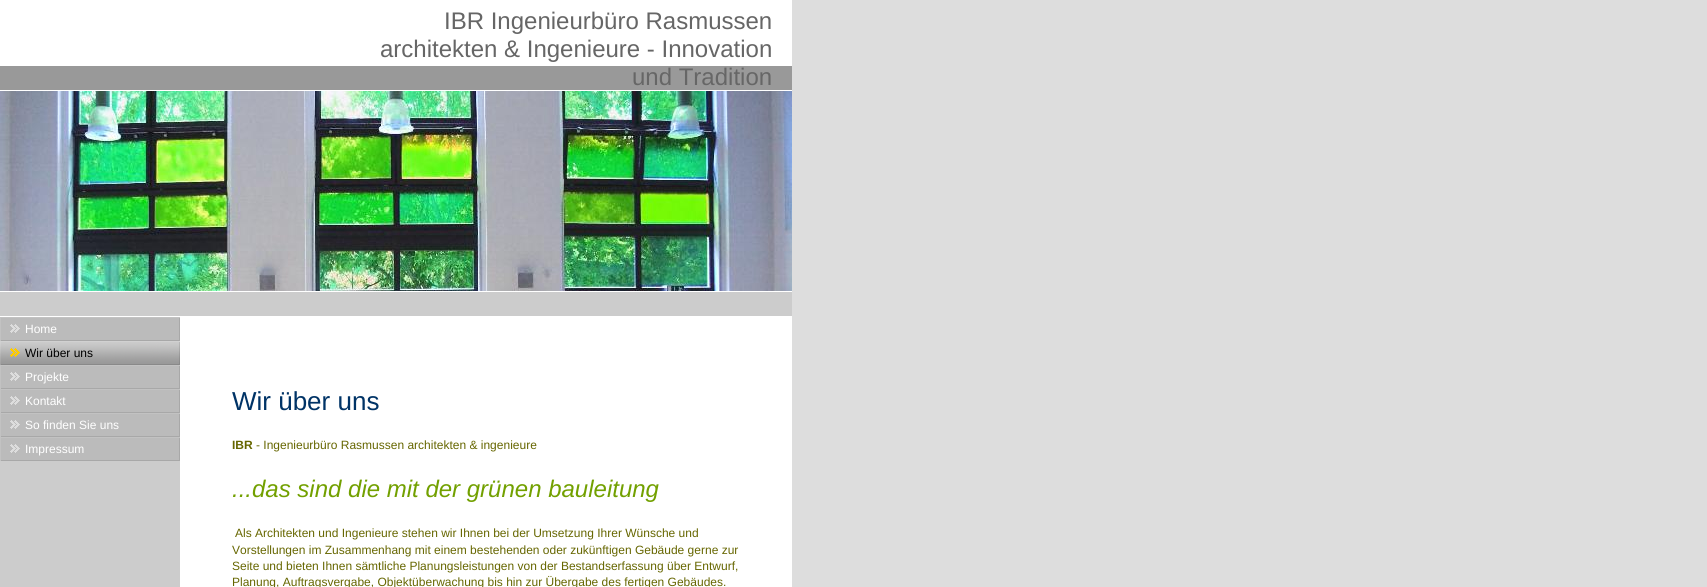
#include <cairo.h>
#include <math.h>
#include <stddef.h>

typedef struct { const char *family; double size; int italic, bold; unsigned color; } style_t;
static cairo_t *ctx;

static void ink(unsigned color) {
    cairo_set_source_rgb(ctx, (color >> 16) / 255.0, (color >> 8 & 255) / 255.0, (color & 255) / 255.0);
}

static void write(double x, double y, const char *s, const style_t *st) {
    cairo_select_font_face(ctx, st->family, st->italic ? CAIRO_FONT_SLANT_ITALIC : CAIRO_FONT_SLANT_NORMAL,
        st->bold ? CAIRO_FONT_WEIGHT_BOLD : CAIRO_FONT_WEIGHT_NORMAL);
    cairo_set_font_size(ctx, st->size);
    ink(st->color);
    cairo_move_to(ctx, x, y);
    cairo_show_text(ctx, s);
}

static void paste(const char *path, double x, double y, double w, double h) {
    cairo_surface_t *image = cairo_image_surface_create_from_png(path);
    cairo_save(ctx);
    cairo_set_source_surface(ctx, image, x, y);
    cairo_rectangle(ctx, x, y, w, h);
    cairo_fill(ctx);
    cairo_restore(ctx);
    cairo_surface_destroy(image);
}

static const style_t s1 = {"Liberation Sans", 24, 0, 0, 0x666666};
static const style_t s2 = {"Liberation Sans", 12, 0, 0, 0xffffff};
static const style_t s3 = {"Liberation Sans", 12, 0, 0, 0x000000};
static const style_t s4 = {"Liberation Sans", 26, 0, 0, 0x003366};
static const style_t s5 = {"Liberation Sans", 12, 0, 1, 0x666600};
static const style_t s6 = {"Liberation Sans", 12, 0, 0, 0x666600};
static const style_t s7 = {"Liberation Sans", 24, 1, 0, 0x72a000};

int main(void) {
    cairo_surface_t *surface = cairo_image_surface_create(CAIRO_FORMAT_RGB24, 1707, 587);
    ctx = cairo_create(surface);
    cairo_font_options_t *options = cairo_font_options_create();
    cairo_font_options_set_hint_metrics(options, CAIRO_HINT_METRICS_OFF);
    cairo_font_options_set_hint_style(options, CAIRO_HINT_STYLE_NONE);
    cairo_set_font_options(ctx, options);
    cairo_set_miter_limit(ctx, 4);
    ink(0xdddddd);
    cairo_paint(ctx);
    paste("pic1.png", 0, 317, 792, 270);
    paste("pic2.png", 0, 0, 792, 317);
    write(444, 29, "IBR Ingenieurbüro Rasmussen", &s1);
    write(380, 57, "architekten & Ingenieure - Innovation", &s1);
    write(632, 85, "und Tradition", &s1);
    paste("pic3.png", 0, 91, 792, 200);
    paste("pic4.png", 0, 317, 180, 24);
    write(25, 333, "Home", &s2);
    paste("pic5.png", 0, 341, 180, 24);
    write(25, 357, "Wir über uns", &s3);
    paste("pic4.png", 0, 365, 180, 24);
    write(25, 381, "Projekte", &s2);
    paste("pic4.png", 0, 389, 180, 24);
    write(25, 405, "Kontakt", &s2);
    paste("pic4.png", 0, 413, 180, 24);
    write(25, 429, "So finden Sie uns", &s2);
    paste("pic4.png", 0, 437, 180, 24);
    write(25, 453, "Impressum", &s2);
    write(232, 410, "Wir über uns", &s4);
    write(232, 449, "IBR", &s5);
    write(256, 449, "- Ingenieurbüro Rasmussen architekten & ingenieure", &s6);
    write(232, 497, "...das sind die mit der grünen bauleitung", &s7);
    write(235, 537, "Als Architekten und Ingenieure stehen wir Ihnen bei der Umsetzung Ihrer Wünsche und", &s6);
    write(232, 554, "Vorstellungen im Zusammenhang mit einem bestehenden oder zukünftigen Gebäude gerne zur", &s6);
    write(232, 570, "Seite und bieten Ihnen sämtliche Planungsleistungen von der Bestandserfassung über Entwurf,", &s6);
    write(232, 586, "Planung, Auftragsvergabe, Objektüberwachung bis hin zur Übergabe des fertigen Gebäudes.", &s6);
    cairo_surface_write_to_png(surface, "screenshot.png");
    cairo_font_options_destroy(options);
    cairo_destroy(ctx);
    cairo_surface_destroy(surface);
    return 0;
}
